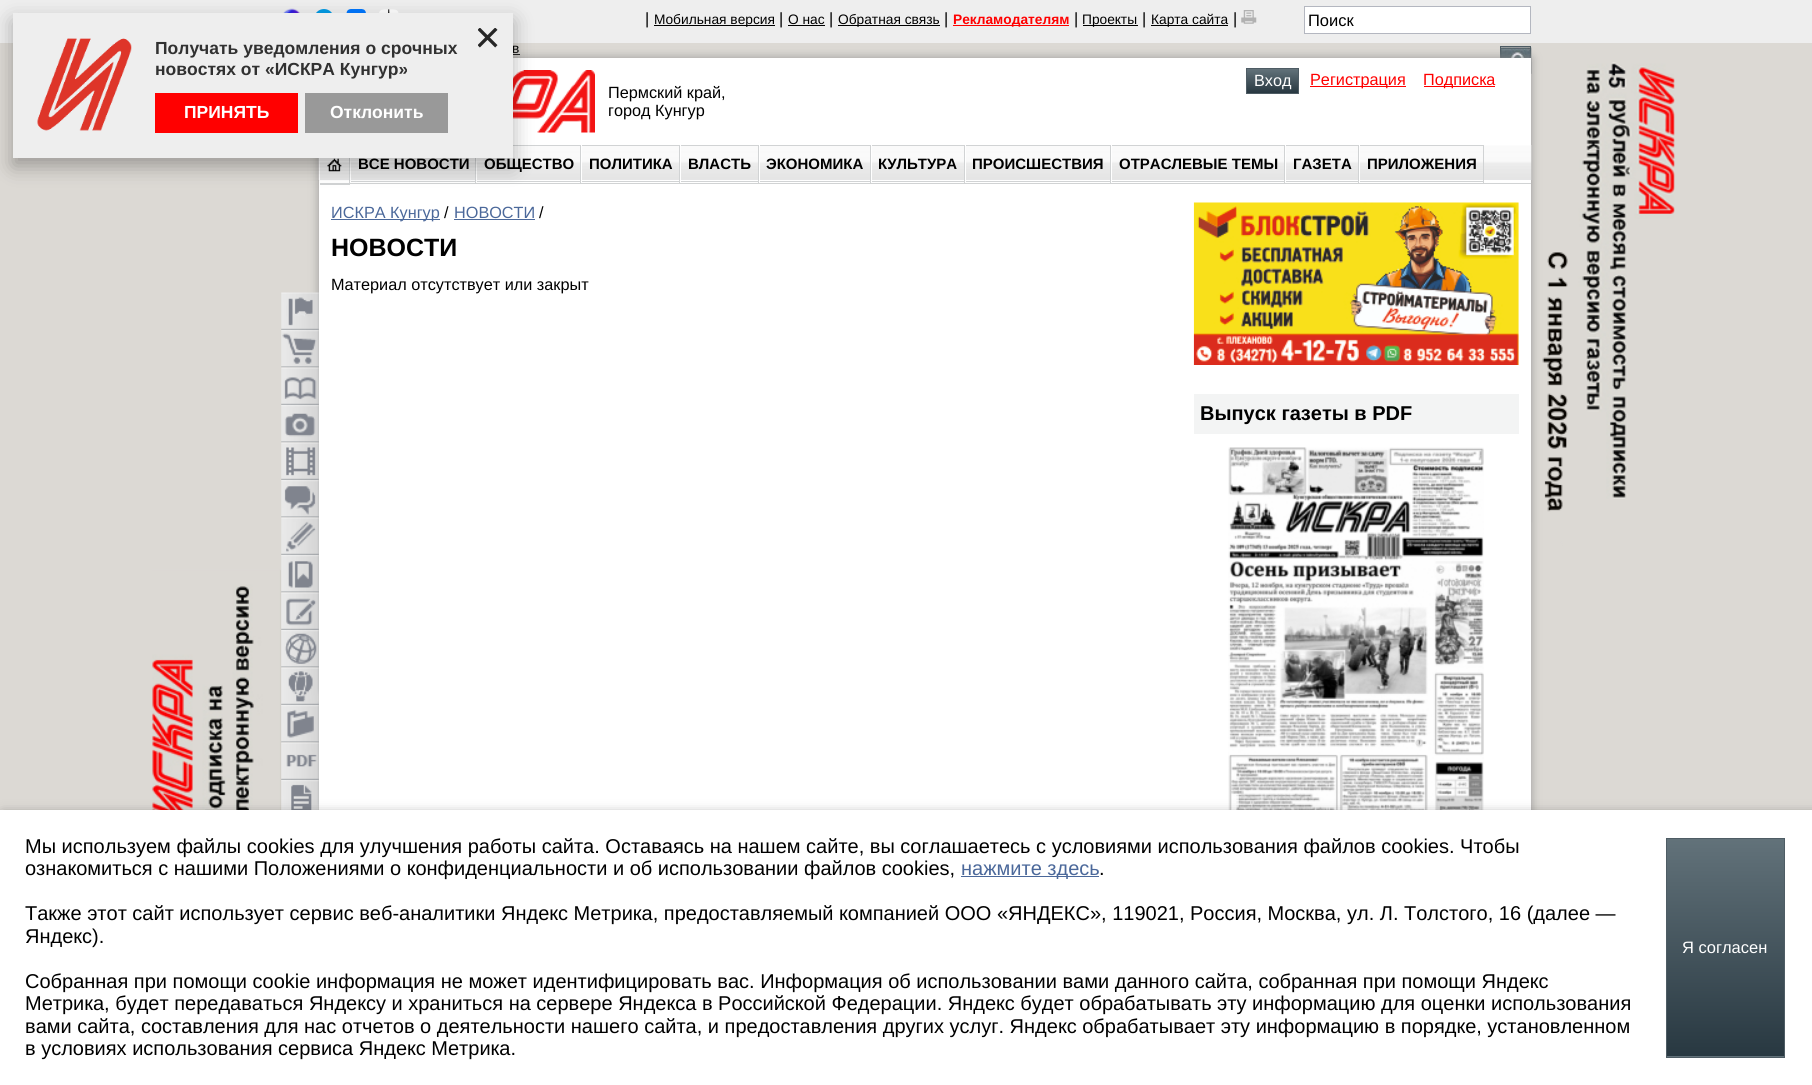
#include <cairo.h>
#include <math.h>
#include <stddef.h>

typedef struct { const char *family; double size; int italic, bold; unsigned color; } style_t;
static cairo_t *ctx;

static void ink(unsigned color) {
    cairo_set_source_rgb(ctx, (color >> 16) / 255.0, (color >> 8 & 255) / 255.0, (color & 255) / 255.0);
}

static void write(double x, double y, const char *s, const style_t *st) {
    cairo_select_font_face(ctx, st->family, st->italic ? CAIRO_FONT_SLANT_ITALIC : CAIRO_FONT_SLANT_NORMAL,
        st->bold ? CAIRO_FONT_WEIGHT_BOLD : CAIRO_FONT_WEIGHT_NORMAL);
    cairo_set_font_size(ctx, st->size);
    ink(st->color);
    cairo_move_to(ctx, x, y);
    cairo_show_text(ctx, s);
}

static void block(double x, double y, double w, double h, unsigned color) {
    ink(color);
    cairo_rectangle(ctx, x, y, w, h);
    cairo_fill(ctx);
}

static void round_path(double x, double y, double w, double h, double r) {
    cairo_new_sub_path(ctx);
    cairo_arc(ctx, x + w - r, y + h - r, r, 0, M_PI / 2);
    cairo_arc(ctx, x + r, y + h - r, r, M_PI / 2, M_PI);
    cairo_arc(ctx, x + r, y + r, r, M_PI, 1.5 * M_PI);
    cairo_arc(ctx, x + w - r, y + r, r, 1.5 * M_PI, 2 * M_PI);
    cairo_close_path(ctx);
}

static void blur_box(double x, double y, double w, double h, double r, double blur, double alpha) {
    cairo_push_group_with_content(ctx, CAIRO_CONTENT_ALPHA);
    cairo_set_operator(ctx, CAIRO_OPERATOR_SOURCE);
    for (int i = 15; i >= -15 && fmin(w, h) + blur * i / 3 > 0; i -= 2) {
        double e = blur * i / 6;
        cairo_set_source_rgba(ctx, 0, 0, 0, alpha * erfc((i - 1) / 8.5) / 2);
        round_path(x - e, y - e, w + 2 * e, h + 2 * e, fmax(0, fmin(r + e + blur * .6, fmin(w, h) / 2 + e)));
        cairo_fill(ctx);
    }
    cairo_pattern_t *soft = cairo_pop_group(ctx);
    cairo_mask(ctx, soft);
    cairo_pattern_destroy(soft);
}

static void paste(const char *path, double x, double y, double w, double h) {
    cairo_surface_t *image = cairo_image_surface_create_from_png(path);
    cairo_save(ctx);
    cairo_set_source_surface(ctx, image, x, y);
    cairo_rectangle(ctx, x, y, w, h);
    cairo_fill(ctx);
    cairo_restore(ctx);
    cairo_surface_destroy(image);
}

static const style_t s1 = {"Liberation Sans", 16.25, 0, 0, 0x000000};
static const style_t s2 = {"Liberation Sans", 13.75, 0, 0, 0x000000};
static const style_t s3 = {"Liberation Sans", 13.75, 0, 1, 0xff0000};
static const style_t s4 = {"Liberation Sans", 16.5, 0, 0, 0x000000};
static const style_t s5 = {"Liberation Sans", 17.5, 0, 1, 0x313131};
static const style_t s6 = {"Liberation Sans", 17.5, 0, 1, 0xffffff};
static const style_t s7 = {"Liberation Sans", 16.25, 0, 0, 0xffffff};
static const style_t s8 = {"Liberation Sans", 16.25, 0, 0, 0xff0000};
static const style_t s9 = {"Liberation Sans", 15, 0, 1, 0x000000};
static const style_t s10 = {"Liberation Sans", 16.25, 0, 0, 0x4b689a};
static const style_t s11 = {"Liberation Sans", 25, 0, 1, 0x000000};
static const style_t s12 = {"Liberation Sans", 20, 0, 1, 0x000000};
static const style_t s13 = {"Liberation Sans", 20, 0, 0, 0x000000};
static const style_t s14 = {"Liberation Sans", 20, 0, 0, 0x4b689a};
static const style_t s15 = {"Liberation Sans", 16.5, 0, 0, 0xffffff};

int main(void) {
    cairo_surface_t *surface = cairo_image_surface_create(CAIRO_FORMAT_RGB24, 1812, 1085);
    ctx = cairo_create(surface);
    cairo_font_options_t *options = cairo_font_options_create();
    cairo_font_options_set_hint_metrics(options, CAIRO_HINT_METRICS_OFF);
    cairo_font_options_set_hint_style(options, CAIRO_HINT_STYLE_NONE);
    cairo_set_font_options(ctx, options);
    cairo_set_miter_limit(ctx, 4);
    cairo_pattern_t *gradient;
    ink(0xdcd9d4);
    cairo_paint(ctx);
    paste("pic1.png", 152, 62, 1523, 748);
    block(0, 0, 1812, 43, 0xeeeeee);
    paste("pic2.png", 283, 8, 17, 5);
    paste("pic3.png", 316, 9, 16, 4);
    paste("pic4.png", 346, 9, 20, 4);
    paste("pic5.png", 379, 9, 20, 4);
    write(645, 24, "|", &s1);
    block(654, 25, 121, 1, 0x000000);
    write(654, 24, "Мобильная версия", &s2);
    write(779, 24, "|", &s1);
    write(788, 24, "О нас", &s2);
    block(788, 25, 37, 1, 0x000000);
    write(829, 24, "|", &s1);
    block(838, 25, 102, 1, 0x000000);
    write(838, 24, "Обратная связь", &s2);
    write(944, 24, "|", &s1);
    block(953, 25, 116, 1, 0xff0000);
    write(953, 24, "Рекламодателям", &s3);
    write(1074, 24, "|", &s1);
    block(1083, 25, 55, 1, 0x000000);
    write(1082, 24, "Проекты", &s2);
    write(1142, 24, "|", &s1);
    block(1151, 25, 77, 1, 0x000000);
    write(1151, 24, "Карта сайта", &s2);
    write(1233, 24, "|", &s1);
    paste("pic6.png", 1241, 10, 16, 14);
    ink(0xffffff);
    cairo_rectangle(ctx, 1304.5, 6.5, 226, 27);
    cairo_fill_preserve(ctx);
    ink(0xb4b7c0);
    cairo_set_line_width(ctx, 1);
    cairo_stroke(ctx);
    write(1308, 26, "Поиск", &s4);
    paste("pic7.png", 1501, 47, 31, 27);
    cairo_rectangle(ctx, 1500.5, 46.5, 30, 27);
    ink(0x4e5c64);
    cairo_stroke(ctx);
    write(512, 53, "в", &s2);
    block(513, 54, 7, 1, 0x000000);
    ink(0x999999);
    blur_box(319, 58, 1212, 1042, 0, 5, 1);
    block(319, 58, 1212, 752, 0xffffff);
    paste("pic10.png", 513, 70, 82, 63);
    paste("pic11.png", 318, 145, 1214, 35);
    block(319, 183, 1212, 1, 0xd1d3d4);
    block(349, 158, 1, 27, 0xd1d3d4);
    block(319, 184, 31, 1, 0xd1d3d4);
    block(319, 158, 1, 27, 0xffffff);
    paste("pic12.png", 327, 158, 15, 14);
    block(475, 158, 1, 25, 0xd1d3d4);
    block(350, 181, 126, 1, 0xd1d3d4);
    block(350, 158, 1, 25, 0xffffff);
    block(513, 145, 971, 1, 0xd1d3d4);
    block(580, 145, 1, 38, 0xd1d3d4);
    block(476, 181, 105, 1, 0xd1d3d4);
    block(476, 158, 1, 25, 0xffffff);
    ink(0x000000);
    blur_box(13, 21, 500, 145, 0, 10, 0.3);
    block(13, 13, 500, 145, 0xeeeeee);
    paste("pic8.png", 37, 38, 95, 93);
    write(155, 54, "Получать уведомления о срочных", &s5);
    write(155, 75, "новостях от «ИСКРА Кунгур»", &s5);
    block(155, 93, 143, 40, 0xff0000);
    write(184, 118, "ПРИНЯТЬ", &s6);
    block(305, 93, 143, 40, 0x999999);
    write(330, 118, "Отклонить", &s6);
    paste("pic9.png", 478, 28, 20, 20);
    gradient = cairo_pattern_create_linear(1273, 69, 1273, 93);
    cairo_pattern_add_color_stop_rgba(gradient, 0, 0.384, 0.447, 0.478, 1);
    cairo_pattern_add_color_stop_rgba(gradient, 1, 0.157, 0.22, 0.255, 1);
    cairo_set_source(ctx, gradient);
    cairo_pattern_destroy(gradient);
    cairo_rectangle(ctx, 1247, 69, 51, 24);
    cairo_fill(ctx);
    cairo_rectangle(ctx, 1246.5, 68.5, 52, 25);
    ink(0x4e5c64);
    cairo_stroke(ctx);
    write(1254, 86, "Вход", &s7);
    block(1310, 86, 96, 1, 0xff0000);
    write(1310, 85, "Регистрация", &s8);
    block(1424, 86, 71, 1, 0xff0000);
    write(1423, 85, "Подписка", &s8);
    write(608, 98, "Пермский край,", &s1);
    write(608, 116, "город Кунгур", &s1);
    write(358, 169, "ВСЕ НОВОСТИ", &s9);
    write(484, 169, "ОБЩЕСТВО", &s9);
    block(679, 145, 1, 38, 0xd1d3d4);
    block(581, 181, 99, 1, 0xd1d3d4);
    block(581, 145, 1, 38, 0xffffff);
    write(589, 169, "ПОЛИТИКА", &s9);
    block(758, 145, 1, 38, 0xd1d3d4);
    block(680, 181, 79, 1, 0xd1d3d4);
    block(680, 145, 1, 38, 0xffffff);
    write(688, 169, "ВЛАСТЬ", &s9);
    block(870, 145, 1, 38, 0xd1d3d4);
    block(759, 181, 112, 1, 0xd1d3d4);
    block(759, 145, 1, 38, 0xffffff);
    write(766, 169, "ЭКОНОМИКА", &s9);
    block(964, 145, 1, 38, 0xd1d3d4);
    block(871, 181, 94, 1, 0xd1d3d4);
    block(871, 145, 1, 38, 0xffffff);
    write(878, 169, "КУЛЬТУРА", &s9);
    block(1110, 145, 1, 38, 0xd1d3d4);
    block(965, 181, 146, 1, 0xd1d3d4);
    block(965, 145, 1, 38, 0xffffff);
    write(972, 169, "ПРОИСШЕСТВИЯ", &s9);
    block(1284, 145, 1, 38, 0xd1d3d4);
    block(1111, 181, 174, 1, 0xd1d3d4);
    block(1111, 145, 1, 38, 0xffffff);
    write(1119, 169, "ОТРАСЛЕВЫЕ ТЕМЫ", &s9);
    block(1358, 145, 1, 38, 0xd1d3d4);
    block(1285, 181, 74, 1, 0xd1d3d4);
    block(1285, 145, 1, 38, 0xffffff);
    write(1293, 169, "ГАЗЕТА", &s9);
    block(1483, 145, 1, 38, 0xd1d3d4);
    block(1359, 181, 125, 1, 0xd1d3d4);
    block(1359, 145, 1, 38, 0xffffff);
    write(1367, 169, "ПРИЛОЖЕНИЯ", &s9);
    block(331, 219, 109, 1, 0x4b689a);
    write(331, 218, "ИСКРА Кунгур", &s10);
    write(444, 218, "/", &s1);
    write(454, 218, "НОВОСТИ", &s10);
    block(454, 219, 81, 1, 0x4b689a);
    write(539, 218, "/", &s1);
    write(331, 256, "НОВОСТИ", &s11);
    write(331, 290, "Материал отсутствует или закрыт", &s1);
    paste("pic13.png", 1193, 202, 326, 163);
    block(1194, 394, 325, 40, 0xf3f4f4);
    write(1200, 420, "Выпуск газеты в PDF", &s12);
    paste("pic14.png", 1228, 447, 256, 363);
    paste("pic28.png", 281, 780, 38, 30);
    ink(0x000000);
    blur_box(3, 814, 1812, 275, 0, 6, 0.4);
    block(0, 810, 1812, 275, 0xffffff);
    write(25, 853, "Мы используем файлы cookies для улучшения работы сайта. Оставаясь на нашем сайте, вы соглашаетесь с условиями использования файлов cookies. Чтобы", &s13);
    write(25, 875, "ознакомиться с нашими Положениями о конфиденциальности и об использовании файлов cookies,", &s13);
    block(961, 876, 138, 1, 0x4b689a);
    write(961, 875, "нажмите здесь", &s14);
    write(1099, 875, ".", &s13);
    write(25, 920, "Также этот сайт использует сервис веб-аналитики Яндекс Метрика, предоставляемый компанией ООО «ЯНДЕКС», 119021, Россия, Москва, ул. Л. Толстого, 16 (далее —", &s13);
    write(25, 943, "Яндекс).", &s13);
    write(25, 988, "Собранная при помощи cookie информация не может идентифицировать вас. Информация об использовании вами данного сайта, собранная при помощи Яндекс", &s13);
    write(25, 1010, "Метрика, будет передаваться Яндексу и храниться на сервере Яндекса в Российской Федерации. Яндекс будет обрабатывать эту информацию для оценки использования", &s13);
    write(25, 1033, "вами сайта, составления для нас отчетов о деятельности нашего сайта, и предоставления других услуг. Яндекс обрабатывает эту информацию в порядке, установленном", &s13);
    write(25, 1055, "в условиях использования сервиса Яндекс Метрика.", &s13);
    gradient = cairo_pattern_create_linear(1726, 839, 1726, 1056);
    cairo_pattern_add_color_stop_rgba(gradient, 0, 0.384, 0.447, 0.478, 1);
    cairo_pattern_add_color_stop_rgba(gradient, 1, 0.157, 0.22, 0.255, 1);
    cairo_set_source(ctx, gradient);
    cairo_pattern_destroy(gradient);
    cairo_rectangle(ctx, 1667, 839, 117, 217);
    cairo_fill(ctx);
    gradient = cairo_pattern_create_linear(1726, 1056, 1726, 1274);
    cairo_pattern_add_color_stop_rgba(gradient, 0, 0.384, 0.447, 0.478, 1);
    cairo_pattern_add_color_stop_rgba(gradient, 1, 0.157, 0.22, 0.255, 1);
    cairo_set_source(ctx, gradient);
    cairo_pattern_destroy(gradient);
    cairo_rectangle(ctx, 1666, 1056, 119, 1);
    cairo_fill(ctx);
    cairo_rectangle(ctx, 1666.5, 838.5, 118, 219);
    ink(0x4e5c64);
    cairo_stroke(ctx);
    write(1682, 953, "Я согласен", &s15);
    paste("pic15.png", 281, 292, 38, 38);
    paste("pic16.png", 281, 330, 38, 38);
    paste("pic17.png", 281, 367, 38, 38);
    paste("pic18.png", 281, 405, 38, 38);
    paste("pic19.png", 281, 442, 38, 38);
    paste("pic20.png", 281, 480, 38, 38);
    paste("pic21.png", 281, 517, 38, 38);
    paste("pic22.png", 281, 555, 38, 38);
    paste("pic23.png", 281, 592, 38, 38);
    paste("pic24.png", 281, 630, 38, 38);
    paste("pic25.png", 281, 667, 38, 38);
    paste("pic26.png", 281, 705, 38, 38);
    paste("pic27.png", 281, 742, 38, 38);
    cairo_surface_write_to_png(surface, "screenshot.png");
    cairo_font_options_destroy(options);
    cairo_destroy(ctx);
    cairo_surface_destroy(surface);
    return 0;
}
